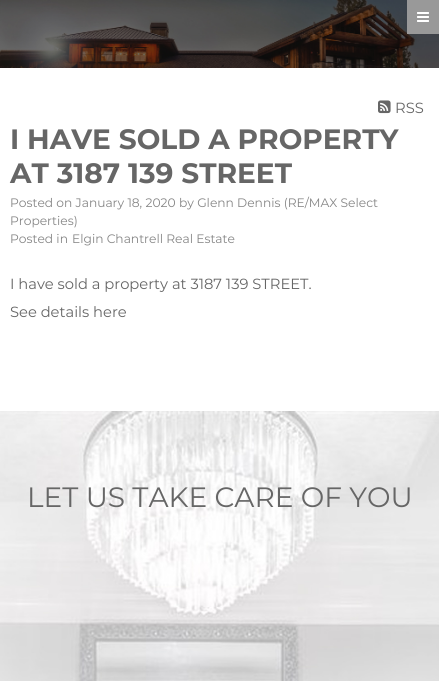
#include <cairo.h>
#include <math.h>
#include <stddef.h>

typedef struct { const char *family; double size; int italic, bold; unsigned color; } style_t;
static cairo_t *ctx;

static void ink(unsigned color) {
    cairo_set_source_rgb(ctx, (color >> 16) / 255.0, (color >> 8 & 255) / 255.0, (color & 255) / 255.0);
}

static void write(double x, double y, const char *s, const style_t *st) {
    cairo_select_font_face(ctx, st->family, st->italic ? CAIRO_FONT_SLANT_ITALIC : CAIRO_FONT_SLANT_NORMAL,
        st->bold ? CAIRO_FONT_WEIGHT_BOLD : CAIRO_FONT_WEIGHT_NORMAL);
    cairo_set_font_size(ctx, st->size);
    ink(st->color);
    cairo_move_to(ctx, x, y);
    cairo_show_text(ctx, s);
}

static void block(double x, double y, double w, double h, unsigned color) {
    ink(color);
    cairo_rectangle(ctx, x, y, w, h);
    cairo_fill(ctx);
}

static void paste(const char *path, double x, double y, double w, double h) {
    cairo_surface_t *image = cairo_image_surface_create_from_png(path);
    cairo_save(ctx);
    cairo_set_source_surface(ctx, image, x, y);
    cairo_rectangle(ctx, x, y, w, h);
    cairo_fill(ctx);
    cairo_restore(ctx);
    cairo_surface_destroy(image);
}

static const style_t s1 = {"Montserrat", 14.7, 0, 0, 0x666666};
static const style_t s2 = {"Montserrat", 28, 0, 1, 0x666666};
static const style_t s3 = {"Montserrat", 12.25, 0, 0, 0x858585};
static const style_t s4 = {"Montserrat", 28, 0, 0, 0x666666};

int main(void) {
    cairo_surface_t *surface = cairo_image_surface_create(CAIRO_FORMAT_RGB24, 439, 681);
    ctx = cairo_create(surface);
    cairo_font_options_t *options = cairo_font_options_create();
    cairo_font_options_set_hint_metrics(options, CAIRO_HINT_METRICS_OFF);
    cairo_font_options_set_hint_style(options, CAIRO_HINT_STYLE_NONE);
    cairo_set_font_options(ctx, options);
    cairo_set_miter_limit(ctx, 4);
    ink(0xffffff);
    cairo_paint(ctx);
    paste("pic1.png", 0, 0, 439, 68);
    block(407, 0, 32, 34, 0x999999);
    paste("pic2.png", 417, 12, 12, 10);
    paste("pic3.png", 378, 100, 13, 14);
    write(395, 113, "RSS", &s1);
    write(10, 149, "I HAVE SOLD A PROPERTY", &s2);
    write(10, 183, "AT 3187 139 STREET", &s2);
    write(10, 207, "Posted on January 18, 2020", &s3);
    write(179, 207, "by Glenn Dennis (RE/MAX Select", &s3);
    write(10, 225, "Properties)", &s3);
    write(10, 243, "Posted in", &s3);
    write(72, 243, "Elgin Chantrell Real Estate", &s3);
    write(10, 289, "I have sold a property at 3187 139 STREET.", &s1);
    write(10, 317, "See details here", &s1);
    paste("pic4.png", 0, 411, 439, 270);
    write(27, 507, "LET US TAKE CARE OF YOU", &s4);
    cairo_surface_write_to_png(surface, "screenshot.png");
    cairo_font_options_destroy(options);
    cairo_destroy(ctx);
    cairo_surface_destroy(surface);
    return 0;
}
